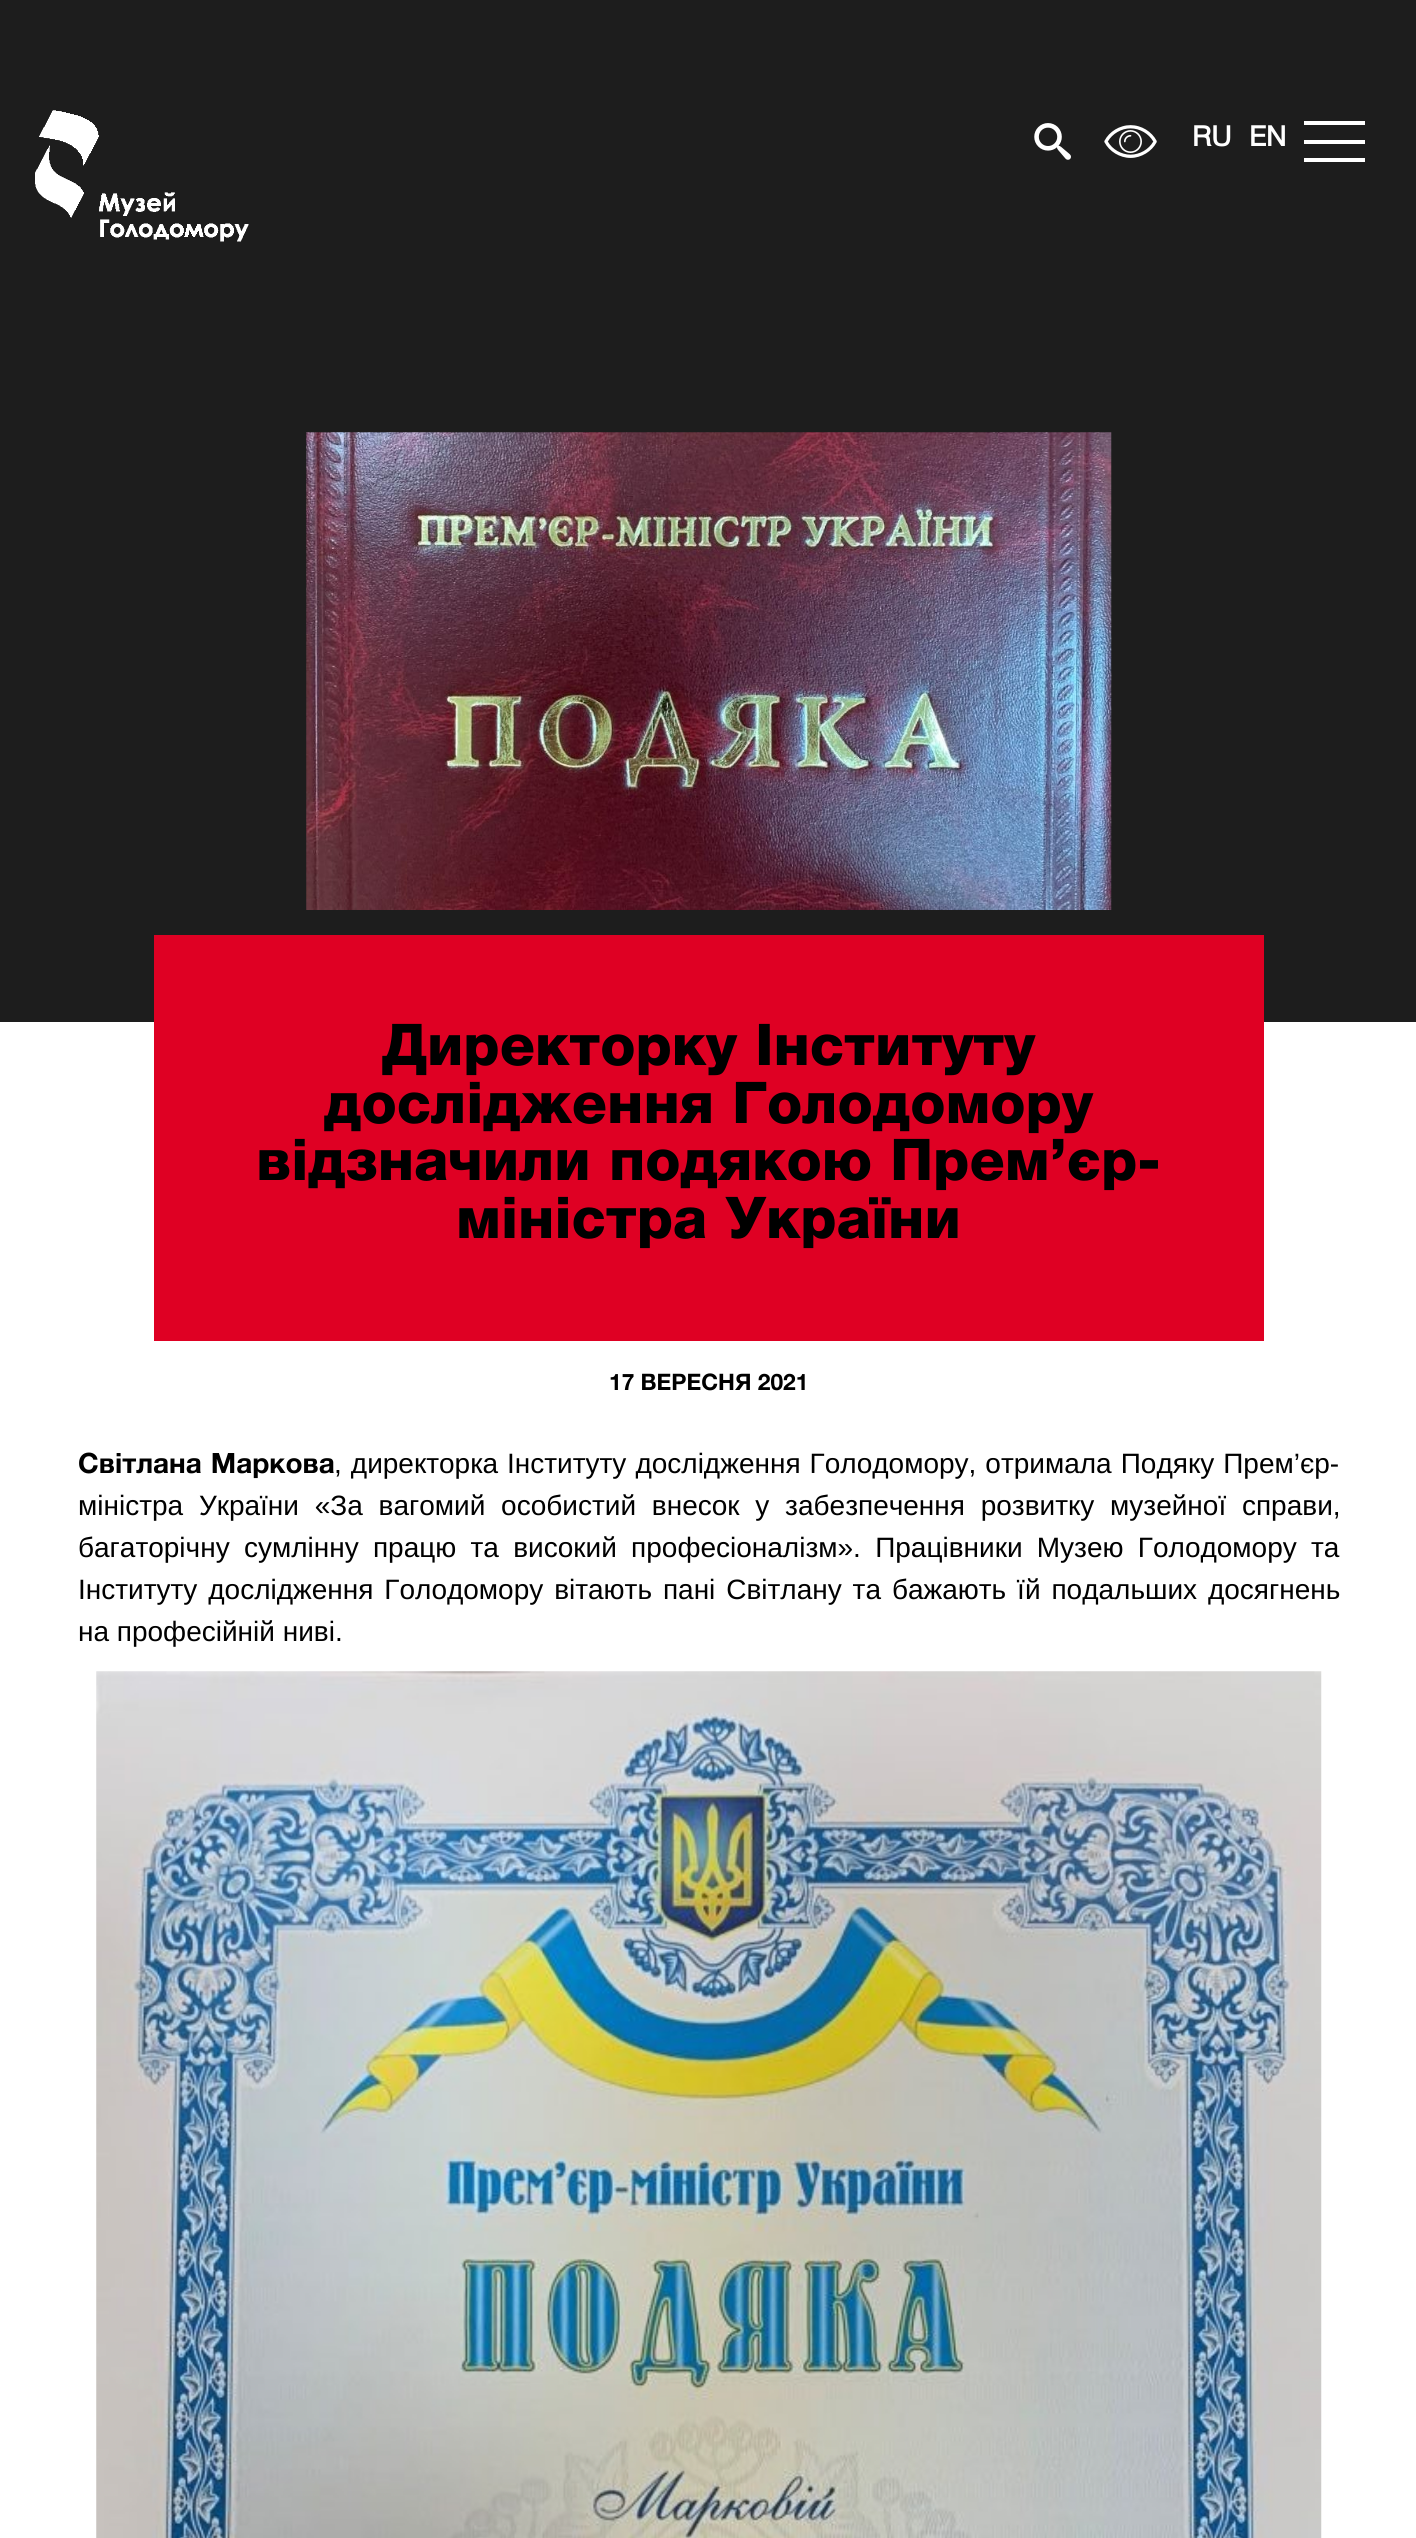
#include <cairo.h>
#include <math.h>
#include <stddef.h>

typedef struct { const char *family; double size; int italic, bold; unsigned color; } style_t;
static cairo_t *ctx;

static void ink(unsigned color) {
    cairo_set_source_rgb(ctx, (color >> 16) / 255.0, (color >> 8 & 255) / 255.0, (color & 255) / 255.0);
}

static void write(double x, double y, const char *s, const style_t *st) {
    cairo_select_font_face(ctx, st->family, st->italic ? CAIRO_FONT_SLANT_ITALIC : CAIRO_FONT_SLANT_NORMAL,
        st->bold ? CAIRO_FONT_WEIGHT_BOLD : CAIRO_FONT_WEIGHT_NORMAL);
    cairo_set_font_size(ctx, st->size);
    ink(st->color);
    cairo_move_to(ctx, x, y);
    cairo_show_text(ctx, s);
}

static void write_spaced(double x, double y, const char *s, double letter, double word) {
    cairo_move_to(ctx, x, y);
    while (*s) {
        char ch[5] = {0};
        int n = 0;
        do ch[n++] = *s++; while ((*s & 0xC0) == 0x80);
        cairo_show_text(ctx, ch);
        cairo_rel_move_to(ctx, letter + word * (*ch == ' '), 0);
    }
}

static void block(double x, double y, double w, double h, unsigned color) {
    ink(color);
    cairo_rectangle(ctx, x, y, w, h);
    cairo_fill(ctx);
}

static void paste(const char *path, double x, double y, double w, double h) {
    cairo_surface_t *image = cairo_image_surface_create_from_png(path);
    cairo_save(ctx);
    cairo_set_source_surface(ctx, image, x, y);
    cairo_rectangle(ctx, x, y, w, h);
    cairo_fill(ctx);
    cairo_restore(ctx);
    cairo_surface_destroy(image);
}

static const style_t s1 = {"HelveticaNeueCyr", 28, 0, 1, 0xffffff};
static const style_t s2 = {"HelveticaNeueCyr Black", 57.75, 0, 0, 0x000000};
static const style_t s3 = {"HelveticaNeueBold", 22.75, 0, 1, 0x000000};
static const style_t s4 = {"Liberation Sans", 28, 0, 0, 0x000000};

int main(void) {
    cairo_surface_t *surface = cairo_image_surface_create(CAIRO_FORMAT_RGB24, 1416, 2538);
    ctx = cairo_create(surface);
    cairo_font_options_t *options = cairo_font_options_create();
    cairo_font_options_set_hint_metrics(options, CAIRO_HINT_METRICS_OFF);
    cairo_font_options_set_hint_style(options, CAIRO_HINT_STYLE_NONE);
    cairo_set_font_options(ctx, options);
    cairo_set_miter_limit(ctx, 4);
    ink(0x1d1d1d);
    cairo_paint(ctx);
    paste("pic1.png", 35, 110, 214, 132);
    paste("pic2.png", 1034, 123, 37, 37);
    paste("pic3.png", 1104, 125, 53, 33);
    write(1192, 146, "RU", &s1);
    write(1249, 146, "EN", &s1);
    block(1304, 121, 61, 4, 0xffffff);
    block(1304, 140, 61, 4, 0xffffff);
    block(1304, 158, 61, 4, 0xffffff);
    block(0, 1022, 1416, 1516, 0xffffff);
    paste("pic4.png", 306, 432, 806, 478);
    block(154, 935, 1110, 406, 0xdf0023);
    write(382, 1065, "Директорку Інституту", &s2);
    write(324, 1123, "дослідження Голодомору", &s2);
    write(256, 1180, "відзначили подякою Прем’єр-", &s2);
    write(456, 1238, "міністра України", &s2);
    write(609, 1390, "17 ВЕРЕСНЯ 2021", &s3);
    cairo_set_font_size(ctx, 28);
    write_spaced(78, 1473, "Світлана Маркова", 0, 1.25);
    cairo_select_font_face(ctx, "Liberation Sans", CAIRO_FONT_SLANT_NORMAL, CAIRO_FONT_WEIGHT_NORMAL);
    write_spaced(334, 1473, ", директорка Інституту дослідження Голодомору, отримала Подяку Прем’єр-", 0, 1.25);
    write_spaced(78, 1515, "міністра України «За вагомий особистий внесок у забезпечення розвитку музейної справи,", 0, 8);
    write_spaced(78, 1557, "багаторічну сумлінну працю та високий професіоналізм». Працівники Музею Голодомору та", 0, 6.5);
    write_spaced(78, 1599, "Інституту дослідження Голодомору вітають пані Світлану та бажають їй подальших досягнень", 0, 3.1);
    write(78, 1641, "на професійній ниві.", &s4);
    paste("pic5.png", 96, 1671, 1226, 867);
    cairo_surface_write_to_png(surface, "screenshot.png");
    cairo_font_options_destroy(options);
    cairo_destroy(ctx);
    cairo_surface_destroy(surface);
    return 0;
}
